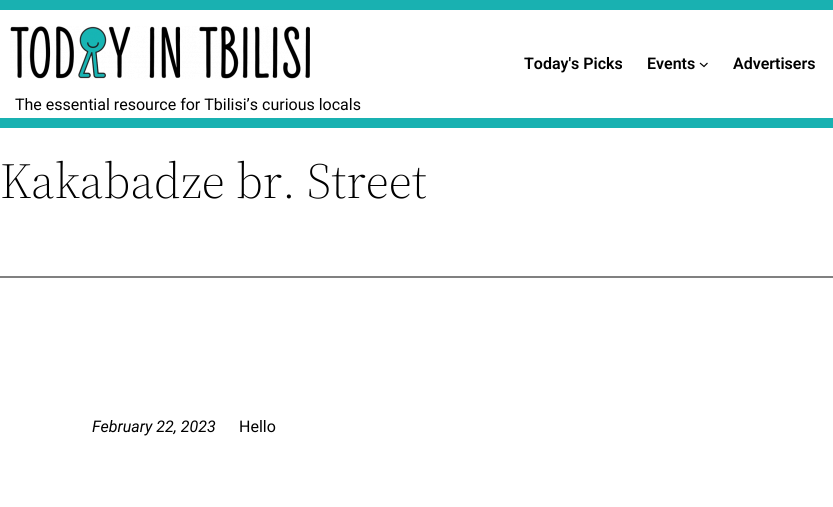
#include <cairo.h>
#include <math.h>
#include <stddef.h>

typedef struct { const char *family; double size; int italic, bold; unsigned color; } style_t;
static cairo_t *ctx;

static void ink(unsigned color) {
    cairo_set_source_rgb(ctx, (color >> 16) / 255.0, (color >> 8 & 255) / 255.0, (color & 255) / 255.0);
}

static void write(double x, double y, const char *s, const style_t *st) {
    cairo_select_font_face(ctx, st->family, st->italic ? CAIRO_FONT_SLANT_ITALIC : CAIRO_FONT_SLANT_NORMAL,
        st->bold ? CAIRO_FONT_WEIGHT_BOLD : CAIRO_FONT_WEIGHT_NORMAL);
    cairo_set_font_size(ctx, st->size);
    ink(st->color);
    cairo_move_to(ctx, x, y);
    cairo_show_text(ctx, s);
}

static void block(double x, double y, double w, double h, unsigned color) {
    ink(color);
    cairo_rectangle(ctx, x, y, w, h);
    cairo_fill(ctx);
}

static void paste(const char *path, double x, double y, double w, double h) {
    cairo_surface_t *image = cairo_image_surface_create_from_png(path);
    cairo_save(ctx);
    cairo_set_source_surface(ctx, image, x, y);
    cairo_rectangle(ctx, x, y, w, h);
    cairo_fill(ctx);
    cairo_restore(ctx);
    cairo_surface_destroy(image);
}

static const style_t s1 = {"Roboto SemiBold", 16, 0, 0, 0x000000};
static const style_t s2 = {"Roboto", 16, 0, 0, 0x000000};
static const style_t s3 = {"Source Serif 4 Light", 50, 0, 0, 0x000000};
static const style_t s4 = {"Roboto", 16, 1, 0, 0x000000};

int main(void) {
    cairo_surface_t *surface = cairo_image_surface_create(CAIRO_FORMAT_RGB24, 833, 507);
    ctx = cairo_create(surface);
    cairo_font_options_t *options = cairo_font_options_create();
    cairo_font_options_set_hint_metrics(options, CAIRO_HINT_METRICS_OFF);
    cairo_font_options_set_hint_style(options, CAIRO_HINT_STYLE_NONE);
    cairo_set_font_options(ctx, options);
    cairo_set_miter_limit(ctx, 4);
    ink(0xffffff);
    cairo_paint(ctx);
    cairo_rectangle(ctx, -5, 5, 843, 118);
    ink(0x19b1b1);
    cairo_set_line_width(ctx, 10);
    cairo_stroke(ctx);
    write(524, 69, "Today's Picks", &s1);
    write(647, 69, "Events", &s1);
    cairo_new_path(ctx);
    cairo_move_to(ctx, 700, 63);
    cairo_line_to(ctx, 704, 66.5);
    cairo_line_to(ctx, 707.5, 63);
    cairo_set_line_width(ctx, 1.2);
    cairo_stroke(ctx);
    write(733, 69, "Advertisers", &s1);
    paste("pic1.png", 10, 26, 300, 53);
    write(15, 110, "The essential resource for Tbilisi’s curious locals", &s2);
    write(0, 198, "Kakabadze br. Street", &s3);
    block(0, 276, 833, 2, 0x808080);
    write(92, 432, "February 22, 2023", &s4);
    write(239, 432, "Hello", &s2);
    cairo_surface_write_to_png(surface, "screenshot.png");
    cairo_font_options_destroy(options);
    cairo_destroy(ctx);
    cairo_surface_destroy(surface);
    return 0;
}
